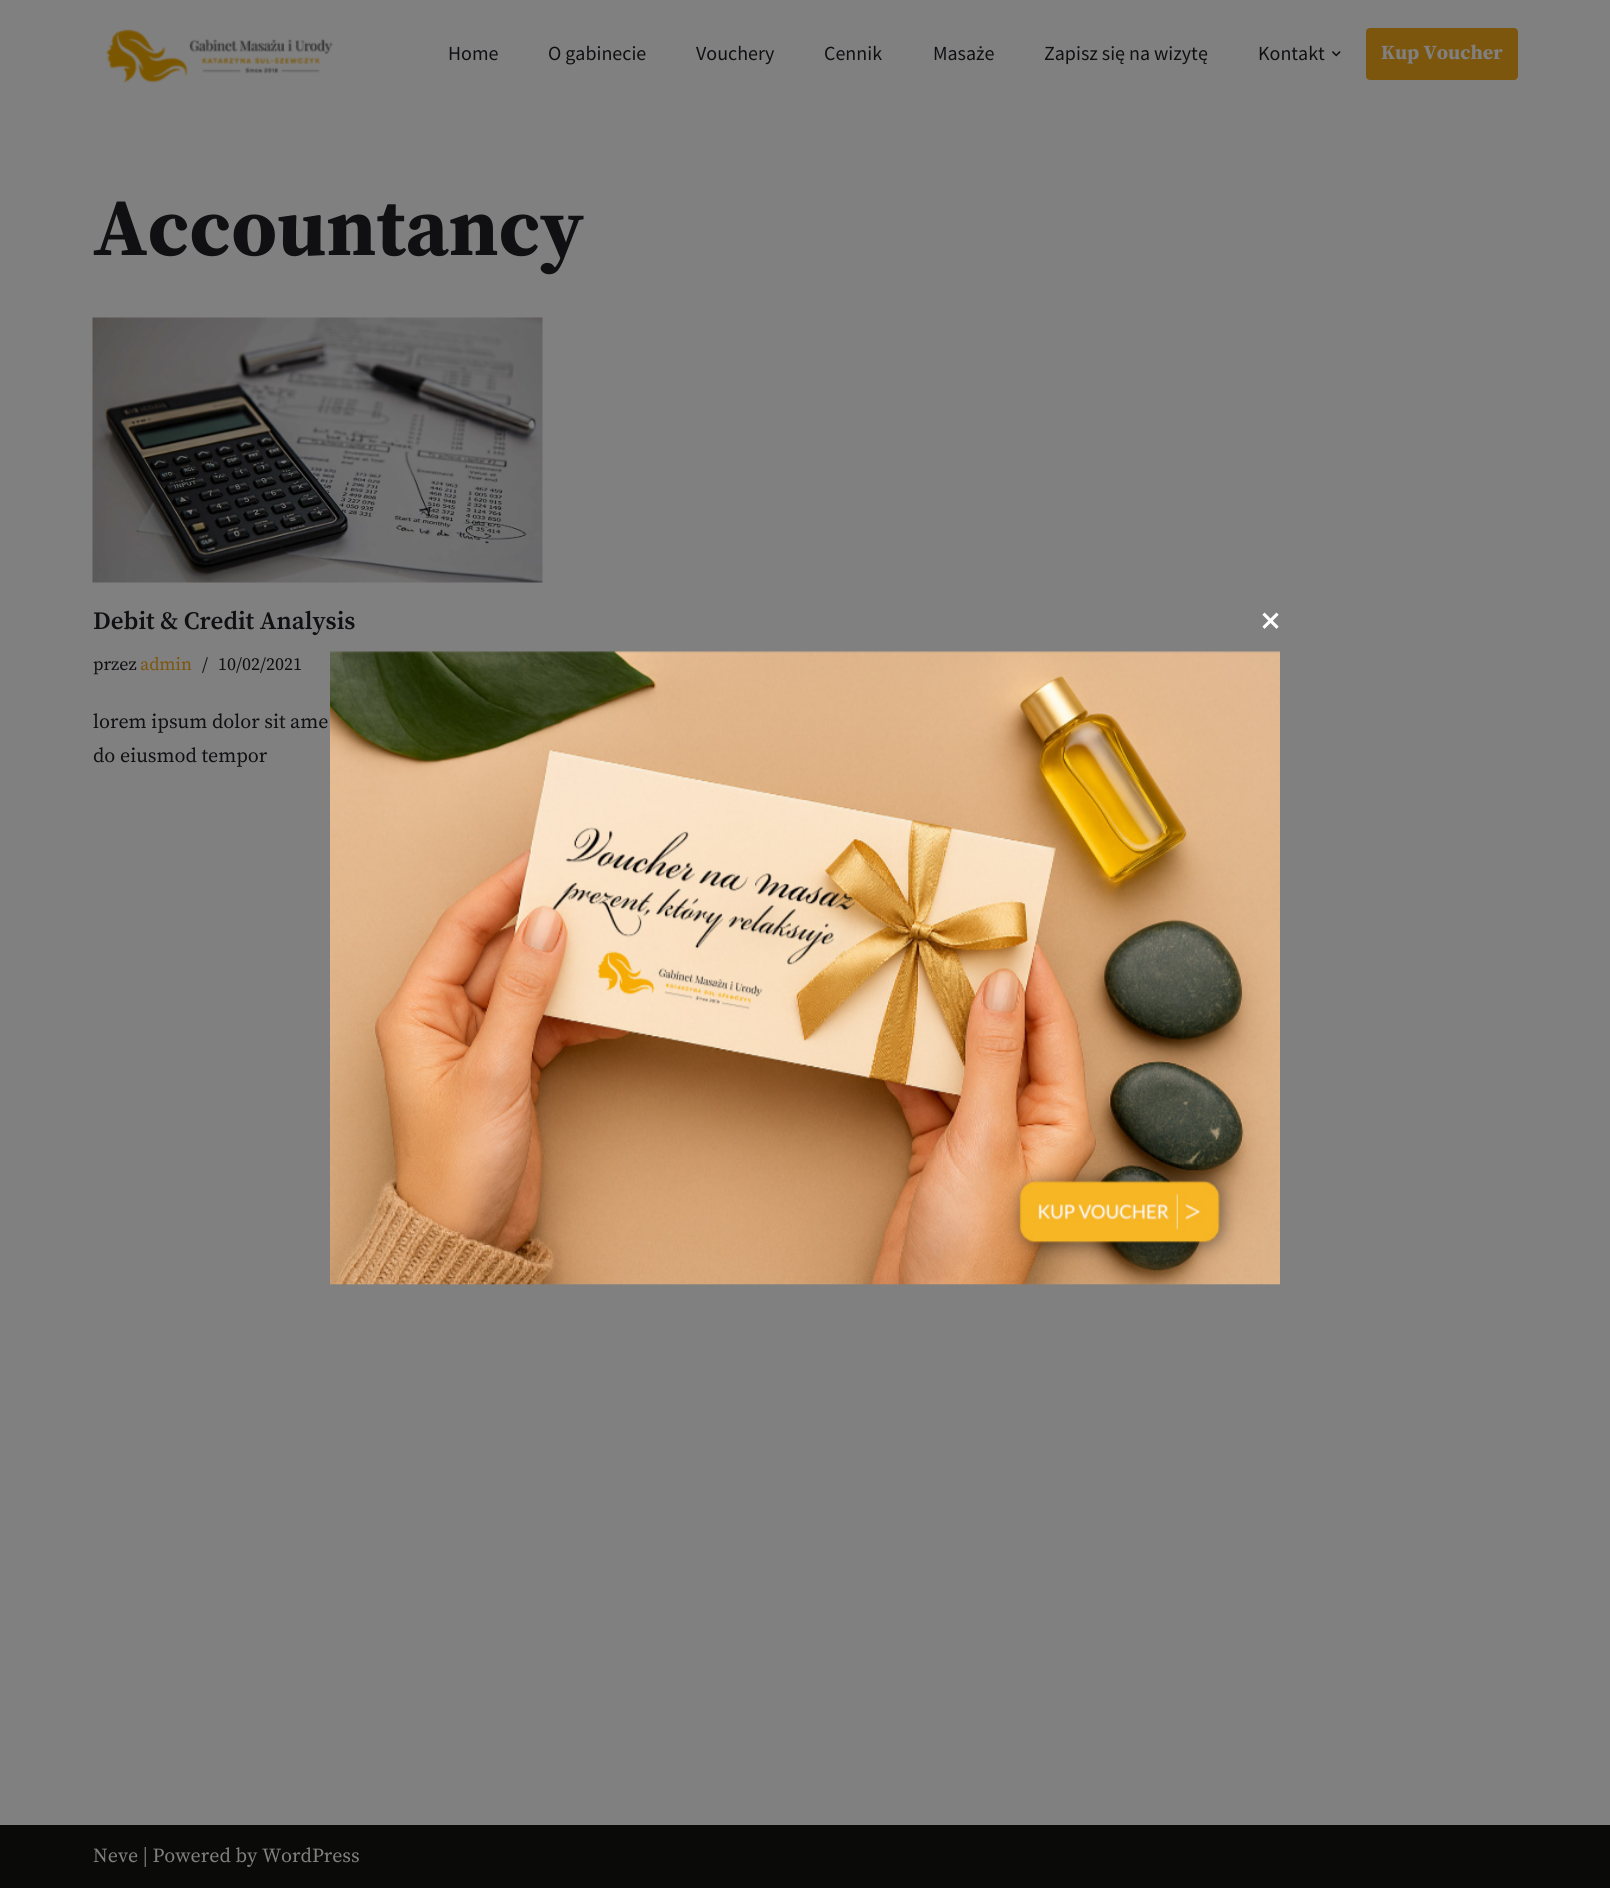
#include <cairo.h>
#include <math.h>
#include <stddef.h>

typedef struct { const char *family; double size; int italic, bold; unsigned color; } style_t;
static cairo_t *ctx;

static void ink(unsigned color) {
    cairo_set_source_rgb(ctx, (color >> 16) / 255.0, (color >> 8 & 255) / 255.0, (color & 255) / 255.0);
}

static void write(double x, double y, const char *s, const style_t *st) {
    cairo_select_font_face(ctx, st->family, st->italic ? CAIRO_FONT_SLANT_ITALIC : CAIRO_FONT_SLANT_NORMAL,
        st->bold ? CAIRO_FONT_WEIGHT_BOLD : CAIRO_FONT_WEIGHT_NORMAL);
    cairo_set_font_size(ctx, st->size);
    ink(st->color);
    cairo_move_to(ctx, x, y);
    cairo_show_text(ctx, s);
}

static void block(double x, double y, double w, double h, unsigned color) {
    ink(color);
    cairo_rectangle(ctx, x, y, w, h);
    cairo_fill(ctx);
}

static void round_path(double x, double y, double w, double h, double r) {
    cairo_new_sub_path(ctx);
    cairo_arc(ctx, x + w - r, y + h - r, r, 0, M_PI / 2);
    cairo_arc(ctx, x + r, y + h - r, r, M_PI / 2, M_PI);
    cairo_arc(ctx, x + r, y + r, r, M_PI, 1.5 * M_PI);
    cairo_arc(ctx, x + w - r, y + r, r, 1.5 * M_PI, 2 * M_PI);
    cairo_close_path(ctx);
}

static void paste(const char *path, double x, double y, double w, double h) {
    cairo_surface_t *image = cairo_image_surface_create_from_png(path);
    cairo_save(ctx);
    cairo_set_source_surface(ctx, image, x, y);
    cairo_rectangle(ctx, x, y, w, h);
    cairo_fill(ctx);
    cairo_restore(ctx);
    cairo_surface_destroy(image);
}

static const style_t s1 = {"Source Sans Pro", 20, 0, 0, 0x101013};
static const style_t s2 = {"Source Serif Pro", 20, 0, 1, 0x808080};
static const style_t s3 = {"Source Serif Pro", 81.25, 0, 1, 0x101013};
static const style_t s4 = {"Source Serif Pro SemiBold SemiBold", 25, 0, 0, 0x101013};
static const style_t s5 = {"Source Serif Pro", 18, 0, 0, 0x101013};
static const style_t s6 = {"Source Serif Pro", 18, 0, 0, 0x7d560d};
static const style_t s7 = {"Source Serif Pro", 20, 0, 0, 0x101013};
static const style_t s8 = {"Source Serif Pro", 20, 0, 0, 0x808080};
static const style_t s9 = {"Source Serif Pro", 35, 0, 1, 0xffffff};

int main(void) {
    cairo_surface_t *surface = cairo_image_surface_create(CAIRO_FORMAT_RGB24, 1610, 1888);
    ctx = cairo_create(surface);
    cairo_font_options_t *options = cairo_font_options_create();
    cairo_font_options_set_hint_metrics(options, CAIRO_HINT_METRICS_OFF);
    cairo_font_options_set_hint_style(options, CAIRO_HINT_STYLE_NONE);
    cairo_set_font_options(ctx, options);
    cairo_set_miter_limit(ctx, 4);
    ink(0x808080);
    cairo_paint(ctx);
    paste("pic1.png", 106, 29, 227, 54);
    write(448, 60, "Home", &s1);
    write(548, 60, "O gabinecie", &s1);
    write(696, 60, "Vouchery", &s1);
    write(824, 60, "Cennik", &s1);
    write(933, 60, "Masaże", &s1);
    write(1044, 60, "Zapisz się na wizytę", &s1);
    write(1258, 60, "Kontakt", &s1);
    paste("pic2.png", 1332, 51, 9, 6);
    ink(0x7d560d);
    round_path(1366, 28, 152, 52, 4);
    cairo_fill(ctx);
    write(1381, 59, "Kup Voucher", &s2);
    write(93, 255, "Accountancy", &s3);
    paste("pic3.png", 92, 317, 451, 266);
    write(93, 629, "Debit & Credit Analysis", &s4);
    write(93, 670, "przez", &s5);
    write(140, 670, "admin", &s6);
    write(202, 670, "/", &s5);
    write(218, 670, "10/02/2021", &s5);
    write(93, 728, "lorem ipsum dolor sit ame", &s7);
    write(93, 762, "do eiusmod tempor", &s7);
    block(0, 1825, 1610, 63, 0x0a0a09);
    write(93, 1862, "Neve | Powered by WordPress", &s8);
    write(1261, 632, "×", &s9);
    paste("pic4.png", 330, 651, 950, 634);
    cairo_surface_write_to_png(surface, "screenshot.png");
    cairo_font_options_destroy(options);
    cairo_destroy(ctx);
    cairo_surface_destroy(surface);
    return 0;
}
